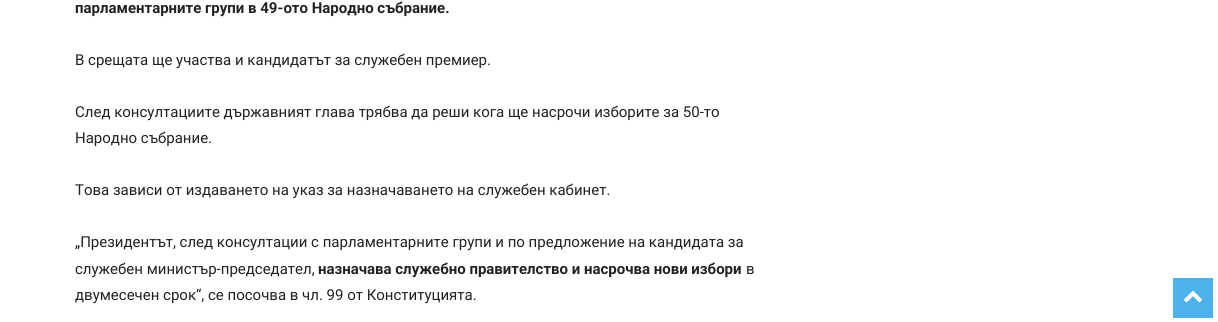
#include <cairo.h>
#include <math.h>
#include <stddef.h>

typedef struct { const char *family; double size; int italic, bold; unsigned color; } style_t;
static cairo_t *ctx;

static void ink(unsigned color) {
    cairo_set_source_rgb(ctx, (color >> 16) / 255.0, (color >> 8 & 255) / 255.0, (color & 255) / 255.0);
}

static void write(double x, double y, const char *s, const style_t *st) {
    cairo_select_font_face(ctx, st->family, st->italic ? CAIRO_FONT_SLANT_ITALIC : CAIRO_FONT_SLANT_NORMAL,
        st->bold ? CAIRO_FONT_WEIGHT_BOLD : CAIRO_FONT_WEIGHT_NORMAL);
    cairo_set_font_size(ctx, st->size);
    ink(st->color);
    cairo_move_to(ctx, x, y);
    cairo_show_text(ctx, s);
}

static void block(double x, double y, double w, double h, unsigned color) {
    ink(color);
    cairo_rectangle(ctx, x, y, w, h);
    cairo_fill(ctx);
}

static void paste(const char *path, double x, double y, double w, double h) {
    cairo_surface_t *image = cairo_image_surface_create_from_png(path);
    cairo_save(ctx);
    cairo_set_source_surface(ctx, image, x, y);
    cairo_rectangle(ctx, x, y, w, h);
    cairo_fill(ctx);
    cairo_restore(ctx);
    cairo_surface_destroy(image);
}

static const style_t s1 = {"Roboto", 15, 0, 1, 0x222222};
static const style_t s2 = {"Roboto", 15, 0, 0, 0x222222};

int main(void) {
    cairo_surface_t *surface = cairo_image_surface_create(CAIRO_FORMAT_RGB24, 1218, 322);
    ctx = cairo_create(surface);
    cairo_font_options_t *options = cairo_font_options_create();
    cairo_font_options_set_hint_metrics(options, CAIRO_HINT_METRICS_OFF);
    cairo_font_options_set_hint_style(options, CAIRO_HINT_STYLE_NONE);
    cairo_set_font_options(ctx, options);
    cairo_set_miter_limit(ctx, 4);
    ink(0xffffff);
    cairo_paint(ctx);
    write(75, 13, "парламентарните групи в 49-ото Народно събрание.", &s1);
    write(75, 65, "В срещата ще участва и кандидатът за служебен премиер.", &s2);
    write(75, 117, "След консултациите държавният глава трябва да реши кога ще насрочи изборите за 50-то", &s2);
    write(75, 143, "Народно събрание.", &s2);
    write(75, 195, "Това зависи от издаването на указ за назначаването на служебен кабинет.", &s2);
    write(75, 247, "„Президентът, след консултации с парламентарните групи и по предложение на кандидата за", &s2);
    write(75, 274, "служебен министър-председател,", &s2);
    write(318, 274, "назначава служебно правителство и насрочва нови избори", &s1);
    write(746, 274, "в", &s2);
    write(75, 300, "двумесечен срок“, се посочва в чл. 99 от Конституцията.", &s2);
    block(1173, 278, 40, 40, 0x4db2ec);
    paste("pic1.png", 1184, 290, 18, 13);
    cairo_surface_write_to_png(surface, "screenshot.png");
    cairo_font_options_destroy(options);
    cairo_destroy(ctx);
    cairo_surface_destroy(surface);
    return 0;
}
